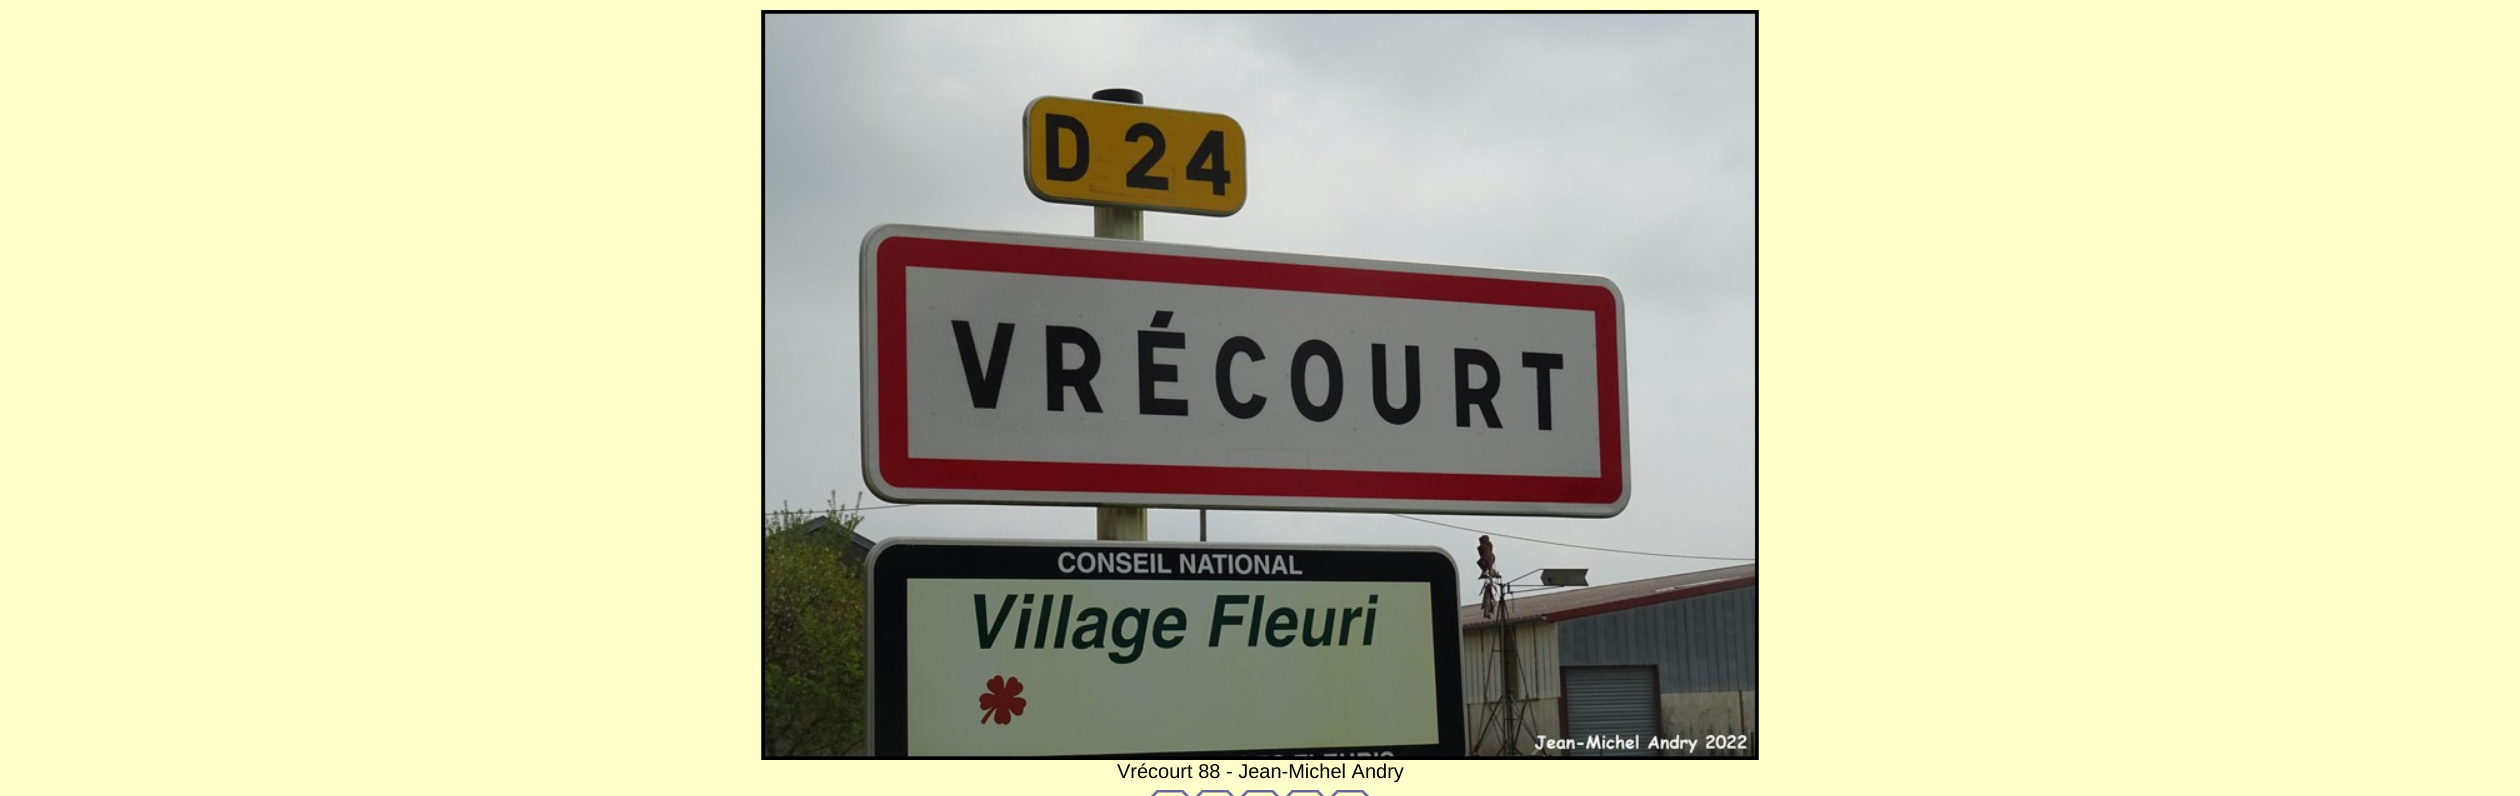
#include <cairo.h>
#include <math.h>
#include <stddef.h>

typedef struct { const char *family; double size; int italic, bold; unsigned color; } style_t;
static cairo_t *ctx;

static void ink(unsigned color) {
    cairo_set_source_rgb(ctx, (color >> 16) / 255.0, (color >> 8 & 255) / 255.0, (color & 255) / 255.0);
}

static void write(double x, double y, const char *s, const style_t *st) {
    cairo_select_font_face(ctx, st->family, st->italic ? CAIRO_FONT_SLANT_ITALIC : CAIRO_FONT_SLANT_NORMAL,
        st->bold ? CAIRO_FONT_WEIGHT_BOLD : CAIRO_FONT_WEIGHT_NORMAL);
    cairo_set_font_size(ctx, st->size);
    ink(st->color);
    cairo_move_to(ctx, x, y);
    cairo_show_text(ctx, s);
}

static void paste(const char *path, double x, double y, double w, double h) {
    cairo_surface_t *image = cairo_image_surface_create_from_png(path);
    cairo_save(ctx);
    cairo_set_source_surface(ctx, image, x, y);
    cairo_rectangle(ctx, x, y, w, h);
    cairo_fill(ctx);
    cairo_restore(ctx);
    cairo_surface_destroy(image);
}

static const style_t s1 = {"Liberation Sans", 20, 0, 0, 0x000000};

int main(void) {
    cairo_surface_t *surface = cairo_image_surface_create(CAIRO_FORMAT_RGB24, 2520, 796);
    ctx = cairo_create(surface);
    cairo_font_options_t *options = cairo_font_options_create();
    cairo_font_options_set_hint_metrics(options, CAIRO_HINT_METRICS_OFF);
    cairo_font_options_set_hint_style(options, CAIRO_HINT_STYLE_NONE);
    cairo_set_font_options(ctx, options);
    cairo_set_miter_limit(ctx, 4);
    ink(0xffffcc);
    cairo_paint(ctx);
    paste("pic1.png", 761, 10, 998, 750);
    write(1117, 778, "Vrécourt 88 - Jean-Michel Andry", &s1);
    paste("pic2.png", 1151, 790, 38, 6);
    paste("pic2.png", 1196, 790, 38, 6);
    paste("pic3.png", 1241, 790, 38, 6);
    paste("pic2.png", 1286, 790, 38, 6);
    paste("pic2.png", 1331, 790, 38, 6);
    cairo_surface_write_to_png(surface, "screenshot.png");
    cairo_font_options_destroy(options);
    cairo_destroy(ctx);
    cairo_surface_destroy(surface);
    return 0;
}
